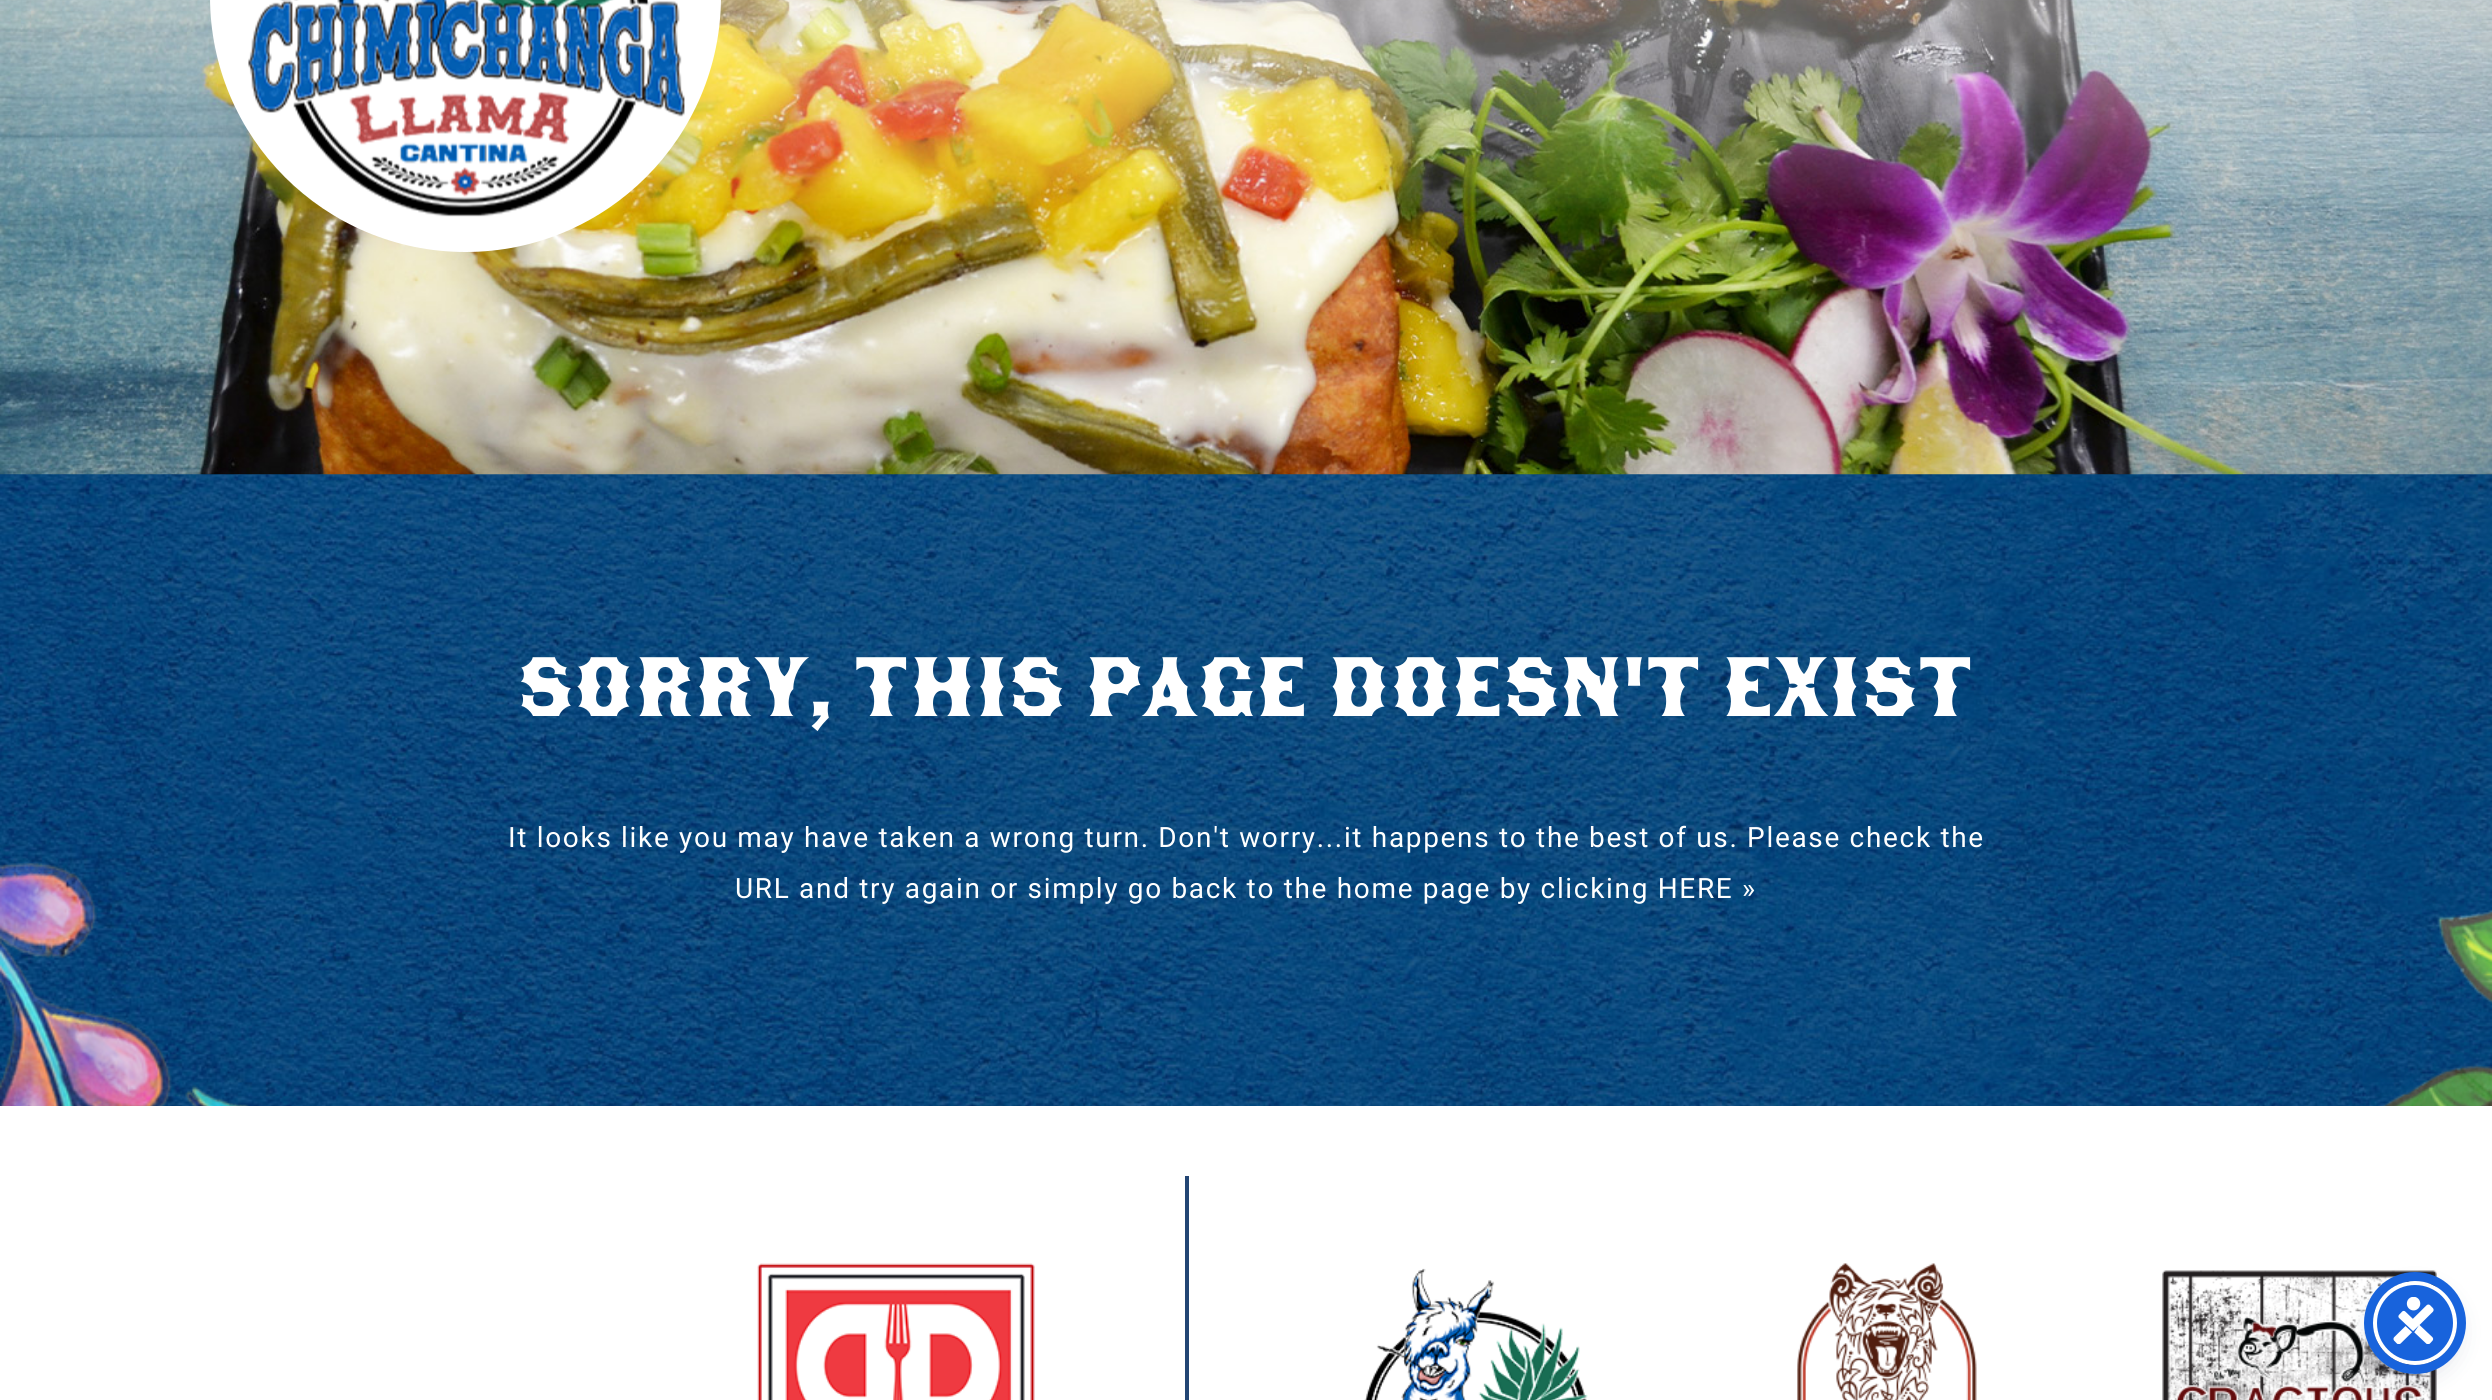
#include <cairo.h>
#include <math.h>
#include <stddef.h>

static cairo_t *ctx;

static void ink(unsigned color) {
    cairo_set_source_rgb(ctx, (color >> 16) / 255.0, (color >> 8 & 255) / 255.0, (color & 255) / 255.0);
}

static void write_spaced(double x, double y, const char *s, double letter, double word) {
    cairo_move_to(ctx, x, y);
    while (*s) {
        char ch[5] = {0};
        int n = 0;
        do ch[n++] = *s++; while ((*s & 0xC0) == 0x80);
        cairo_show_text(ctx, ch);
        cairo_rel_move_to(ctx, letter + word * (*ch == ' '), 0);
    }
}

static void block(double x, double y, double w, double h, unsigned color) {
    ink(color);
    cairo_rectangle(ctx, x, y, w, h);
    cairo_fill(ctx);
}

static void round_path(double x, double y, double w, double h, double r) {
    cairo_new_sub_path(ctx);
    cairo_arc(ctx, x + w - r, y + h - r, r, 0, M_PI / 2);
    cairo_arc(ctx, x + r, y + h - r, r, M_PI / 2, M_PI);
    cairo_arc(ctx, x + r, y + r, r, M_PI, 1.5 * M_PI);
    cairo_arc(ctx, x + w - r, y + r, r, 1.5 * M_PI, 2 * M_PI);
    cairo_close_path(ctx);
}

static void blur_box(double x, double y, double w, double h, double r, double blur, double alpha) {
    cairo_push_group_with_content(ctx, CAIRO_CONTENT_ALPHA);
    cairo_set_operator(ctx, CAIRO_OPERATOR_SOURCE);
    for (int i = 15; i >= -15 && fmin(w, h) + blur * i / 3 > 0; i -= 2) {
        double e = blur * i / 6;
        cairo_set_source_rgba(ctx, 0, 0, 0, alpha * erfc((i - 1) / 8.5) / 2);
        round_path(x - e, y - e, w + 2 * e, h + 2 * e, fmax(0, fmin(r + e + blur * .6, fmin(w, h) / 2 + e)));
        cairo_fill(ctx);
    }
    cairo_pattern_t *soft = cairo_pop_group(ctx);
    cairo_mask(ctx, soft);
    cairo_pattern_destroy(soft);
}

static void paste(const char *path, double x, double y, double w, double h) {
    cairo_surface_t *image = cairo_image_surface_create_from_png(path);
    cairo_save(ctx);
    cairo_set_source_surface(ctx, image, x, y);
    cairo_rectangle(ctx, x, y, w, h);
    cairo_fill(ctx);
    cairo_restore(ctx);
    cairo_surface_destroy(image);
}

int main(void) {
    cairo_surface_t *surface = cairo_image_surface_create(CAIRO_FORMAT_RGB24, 2492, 1400);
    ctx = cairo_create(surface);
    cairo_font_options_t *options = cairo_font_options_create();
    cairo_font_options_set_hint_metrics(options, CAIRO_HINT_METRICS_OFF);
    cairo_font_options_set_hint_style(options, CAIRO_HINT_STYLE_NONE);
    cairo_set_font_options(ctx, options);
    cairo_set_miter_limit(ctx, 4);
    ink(0xffffff);
    cairo_paint(ctx);
    paste("pic1.png", 0, 474, 2492, 632);
    paste("pic3.png", 0, 0, 2492, 475);
    ink(0xffffff);
    cairo_new_path(ctx);
    cairo_move_to(ctx, 210, -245);
    cairo_line_to(ctx, 721, -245);
    cairo_line_to(ctx, 721, -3.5);
    cairo_curve_to(ctx, 721, 137.5, 606.5, 252, 465.5, 252);
    cairo_curve_to(ctx, 324.5, 252, 210, 137.5, 210, -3.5);
    cairo_close_path(ctx);
    cairo_fill(ctx);
    paste("pic2.png", 248, 0, 437, 217);
    paste("pic4.png", 0, 862, 2492, 244);
    cairo_select_font_face(ctx, "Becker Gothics", CAIRO_FONT_SLANT_NORMAL, CAIRO_FONT_WEIGHT_NORMAL);
    cairo_set_font_size(ctx, 84);
    write_spaced(518, 716, "SORRY, THIS PAGE DOESN'T EXIST", 1.68, 0);
    cairo_select_font_face(ctx, "Roboto", CAIRO_FONT_SLANT_NORMAL, CAIRO_FONT_WEIGHT_NORMAL);
    cairo_set_font_size(ctx, 28);
    write_spaced(508, 847, "It looks like you may have taken a wrong turn. Don't worry...it happens to the best of us. Please check the", 1.68, 0);
    write_spaced(735, 898, "URL and try again or simply go back to the home page by clicking HERE »", 1.68, 0);
    paste("pic5.png", 757, 1263, 278, 137);
    block(1185, 1176, 4, 224, 0x224573);
    paste("pic6.png", 1364, 1268, 224, 132);
    paste("pic7.png", 1797, 1263, 180, 137);
    paste("pic8.png", 2162, 1270, 275, 130);
    ink(0x5d6494);
    blur_box(2373, 1285, 84, 84, 42, 3.5, 0.2);
    ink(0x252c61);
    blur_box(2373, 1290, 84, 84, 42, 13, 0.15);
    ink(0x1863dc);
    cairo_arc(ctx, 2415, 1323, 40, 0, 2 * M_PI);
    cairo_fill_preserve(ctx);
    ink(0xffffff);
    cairo_set_line_width(ctx, 4);
    cairo_stroke(ctx);
    cairo_arc(ctx, 2415, 1323, 46.5, 0, 2 * M_PI);
    ink(0x1863dc);
    cairo_set_line_width(ctx, 9);
    cairo_stroke(ctx);
    paste("pic9.png", 2393, 1297, 41, 47);
    cairo_surface_write_to_png(surface, "screenshot.png");
    cairo_font_options_destroy(options);
    cairo_destroy(ctx);
    cairo_surface_destroy(surface);
    return 0;
}
